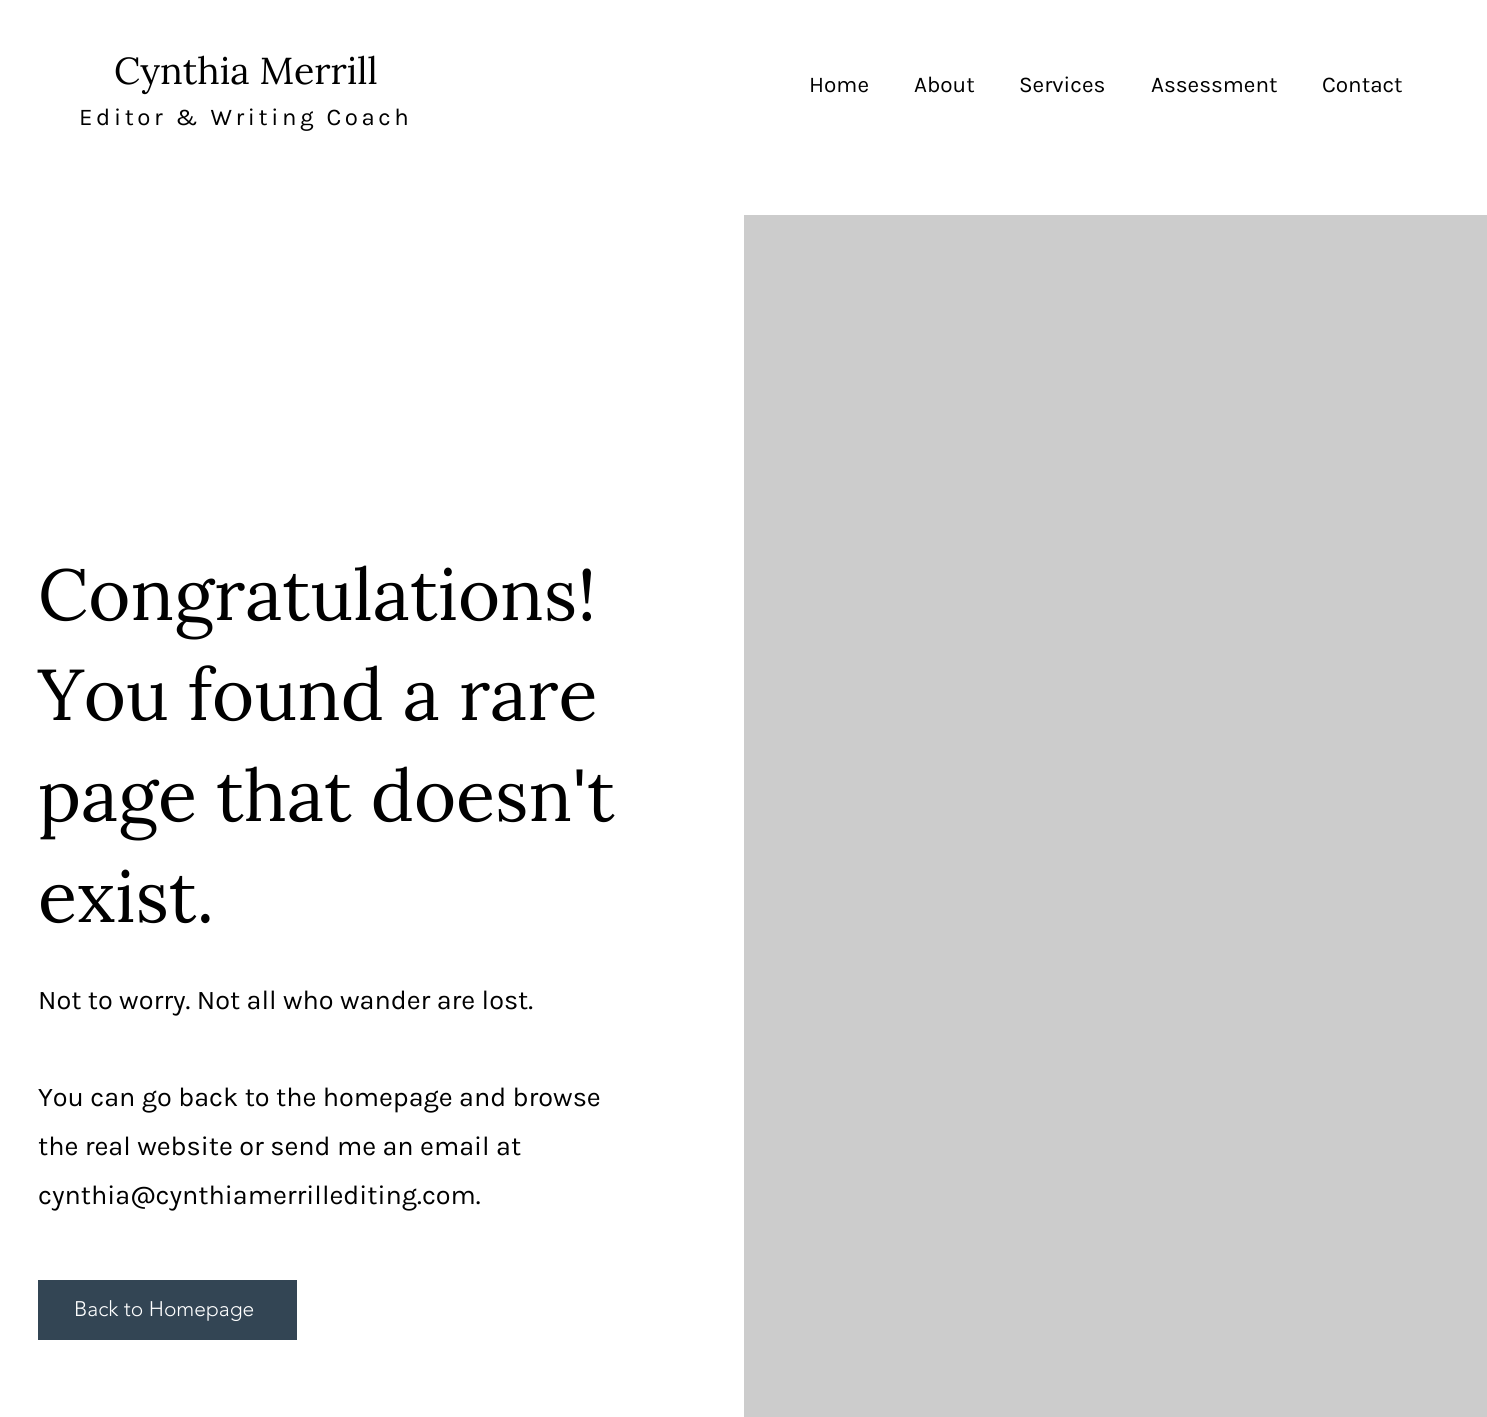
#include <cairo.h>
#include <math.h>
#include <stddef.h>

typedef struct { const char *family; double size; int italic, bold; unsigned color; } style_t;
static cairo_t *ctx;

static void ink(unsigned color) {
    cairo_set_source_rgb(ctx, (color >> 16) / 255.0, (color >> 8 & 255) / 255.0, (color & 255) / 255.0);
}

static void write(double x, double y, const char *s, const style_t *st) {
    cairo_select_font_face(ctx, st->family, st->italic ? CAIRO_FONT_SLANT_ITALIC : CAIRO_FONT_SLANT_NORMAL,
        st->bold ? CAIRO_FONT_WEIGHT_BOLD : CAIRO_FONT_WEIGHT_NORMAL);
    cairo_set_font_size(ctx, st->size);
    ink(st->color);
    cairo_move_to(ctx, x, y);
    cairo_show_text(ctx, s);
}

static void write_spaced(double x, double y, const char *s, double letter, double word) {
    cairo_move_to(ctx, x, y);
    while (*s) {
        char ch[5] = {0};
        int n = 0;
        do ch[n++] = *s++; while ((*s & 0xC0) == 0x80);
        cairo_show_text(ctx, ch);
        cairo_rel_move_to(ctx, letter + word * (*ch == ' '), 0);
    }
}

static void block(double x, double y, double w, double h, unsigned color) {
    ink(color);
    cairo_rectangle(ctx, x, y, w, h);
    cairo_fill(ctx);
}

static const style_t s1 = {"Lora", 37.5, 0, 0, 0x000000};
static const style_t s2 = {"Karla", 22.5, 0, 0, 0x000000};
static const style_t s3 = {"Lora", 72, 0, 0, 0x000000};
static const style_t s4 = {"Karla", 27, 0, 0, 0x000000};
static const style_t s5 = {"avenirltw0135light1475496 Light", 21, 0, 0, 0xffffff};

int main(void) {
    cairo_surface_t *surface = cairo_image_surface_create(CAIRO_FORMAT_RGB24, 1487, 1417);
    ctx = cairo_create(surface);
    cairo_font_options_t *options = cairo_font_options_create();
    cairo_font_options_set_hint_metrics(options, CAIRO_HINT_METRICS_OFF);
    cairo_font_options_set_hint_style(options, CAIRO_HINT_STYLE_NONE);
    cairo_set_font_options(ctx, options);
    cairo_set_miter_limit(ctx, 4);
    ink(0xffffff);
    cairo_paint(ctx);
    write(114, 84, "Cynthia Merrill", &s1);
    write(809, 92, "Home", &s2);
    write(914, 92, "About", &s2);
    write(1019, 92, "Services", &s2);
    write(1151, 92, "Assessment", &s2);
    write(1322, 92, "Contact", &s2);
    cairo_set_font_size(ctx, 24);
    write_spaced(79, 125, "Editor & Writing Coach", 3.6, 0);
    write(38, 620, "Congratulations!", &s3);
    write(38, 720, "You found a rare", &s3);
    write(38, 821, "page that doesn't", &s3);
    write(38, 922, "exist.", &s3);
    write(38, 1009, "Not to worry. Not all who wander are lost.", &s4);
    write(38, 1106, "You can go back to the homepage and browse", &s4);
    write(38, 1155, "the real website or send me an email at", &s4);
    write(38, 1204, "cynthia@cynthiamerrillediting.com.", &s4);
    block(38, 1280, 259, 60, 0x334554);
    write(74, 1316, "Back to Homepage", &s5);
    block(744, 215, 743, 1202, 0xcccccc);
    cairo_surface_write_to_png(surface, "screenshot.png");
    cairo_font_options_destroy(options);
    cairo_destroy(ctx);
    cairo_surface_destroy(surface);
    return 0;
}
